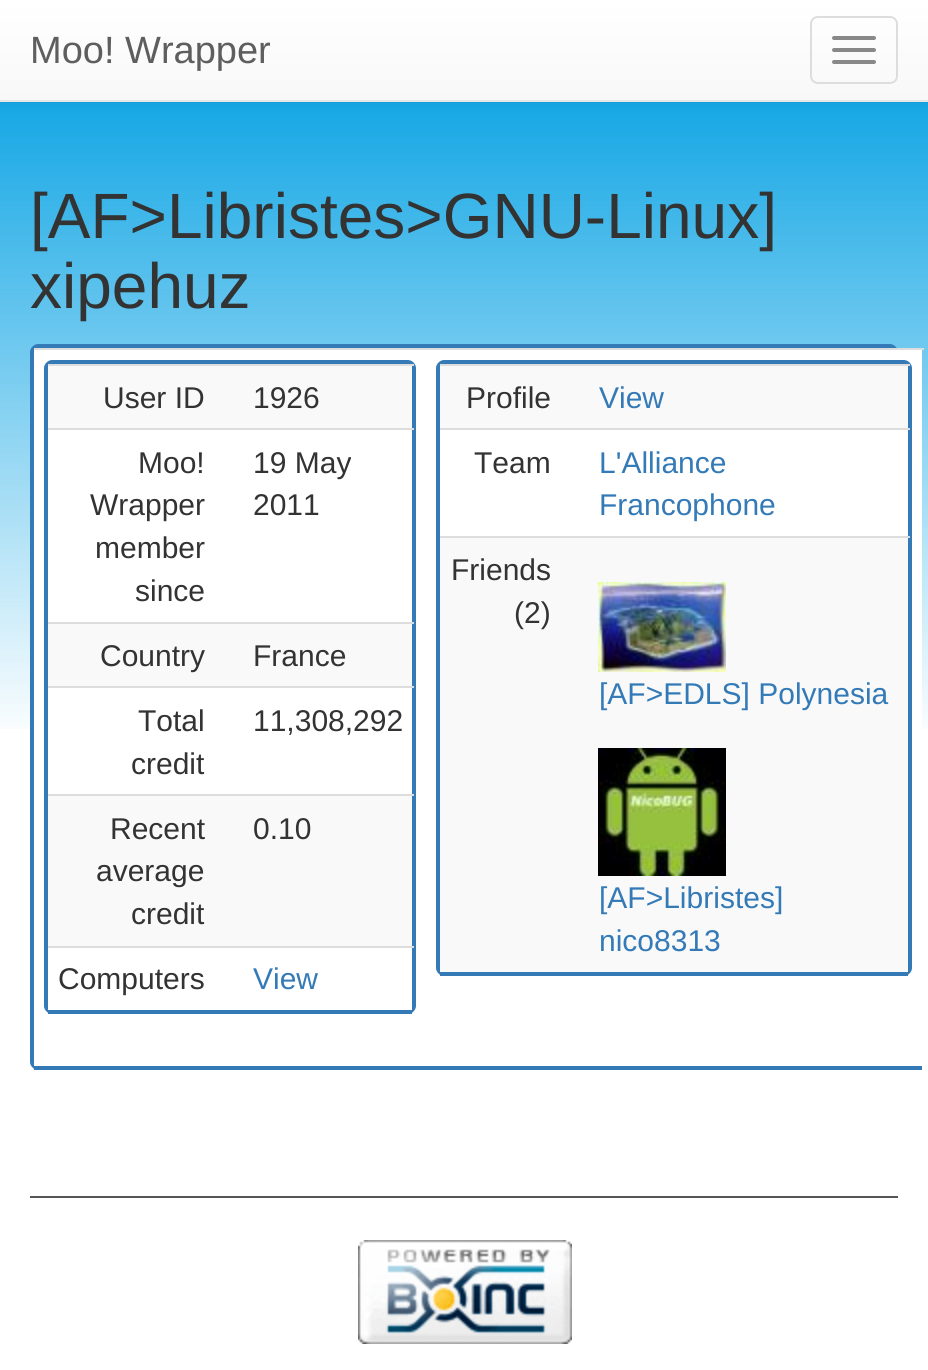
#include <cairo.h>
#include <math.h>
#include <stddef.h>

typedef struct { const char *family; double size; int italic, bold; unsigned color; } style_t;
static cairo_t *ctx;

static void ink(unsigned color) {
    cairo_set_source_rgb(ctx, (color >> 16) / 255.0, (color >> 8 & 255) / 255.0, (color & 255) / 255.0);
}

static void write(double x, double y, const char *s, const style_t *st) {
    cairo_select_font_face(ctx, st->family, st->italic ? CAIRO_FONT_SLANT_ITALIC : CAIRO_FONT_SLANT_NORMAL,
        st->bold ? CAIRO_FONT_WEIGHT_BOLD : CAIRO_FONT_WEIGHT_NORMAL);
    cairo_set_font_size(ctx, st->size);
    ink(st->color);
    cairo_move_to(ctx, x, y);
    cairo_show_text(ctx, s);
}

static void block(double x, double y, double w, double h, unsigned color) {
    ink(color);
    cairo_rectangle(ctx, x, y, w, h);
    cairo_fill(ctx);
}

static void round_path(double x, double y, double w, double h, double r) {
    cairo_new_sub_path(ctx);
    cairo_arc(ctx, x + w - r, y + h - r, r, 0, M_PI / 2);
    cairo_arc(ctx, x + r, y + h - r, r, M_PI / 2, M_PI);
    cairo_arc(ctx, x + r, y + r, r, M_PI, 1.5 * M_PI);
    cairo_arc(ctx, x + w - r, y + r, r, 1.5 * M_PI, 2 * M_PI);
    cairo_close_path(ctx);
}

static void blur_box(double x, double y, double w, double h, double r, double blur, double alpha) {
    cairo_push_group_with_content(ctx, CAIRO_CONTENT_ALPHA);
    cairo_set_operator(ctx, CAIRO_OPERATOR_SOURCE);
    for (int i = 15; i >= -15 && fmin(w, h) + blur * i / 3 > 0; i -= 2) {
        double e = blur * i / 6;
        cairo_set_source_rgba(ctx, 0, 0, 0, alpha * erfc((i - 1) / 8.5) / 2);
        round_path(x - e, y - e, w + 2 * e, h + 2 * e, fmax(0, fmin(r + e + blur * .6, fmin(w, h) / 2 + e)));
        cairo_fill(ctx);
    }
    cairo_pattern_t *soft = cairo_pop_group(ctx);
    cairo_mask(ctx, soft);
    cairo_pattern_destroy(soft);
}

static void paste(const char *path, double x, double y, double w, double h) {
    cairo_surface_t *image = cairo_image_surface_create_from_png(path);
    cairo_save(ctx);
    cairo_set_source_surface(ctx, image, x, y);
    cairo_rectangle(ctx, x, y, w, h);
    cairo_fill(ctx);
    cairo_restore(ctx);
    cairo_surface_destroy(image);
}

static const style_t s1 = {"Liberation Sans", 38, 0, 0, 0x5e5e5e};
static const style_t s2 = {"Liberation Sans", 64, 0, 0, 0x333333};
static const style_t s3 = {"Liberation Sans", 30, 0, 0, 0x333333};
static const style_t s4 = {"Liberation Sans", 30, 0, 0, 0x337ab7};

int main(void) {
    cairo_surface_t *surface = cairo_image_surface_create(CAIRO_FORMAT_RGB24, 928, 1370);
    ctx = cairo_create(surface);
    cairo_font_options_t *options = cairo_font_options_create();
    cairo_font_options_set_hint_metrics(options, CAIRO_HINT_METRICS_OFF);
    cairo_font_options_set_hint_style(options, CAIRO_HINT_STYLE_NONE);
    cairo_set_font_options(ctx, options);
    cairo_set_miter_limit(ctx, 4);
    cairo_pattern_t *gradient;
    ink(0xffffff);
    cairo_paint(ctx);
    paste("pic1.png", 0, 102, 928, 627);
    ink(0x000000);
    blur_box(0, 2, 928, 102, 0, 5, 0.07);
    gradient = cairo_pattern_create_linear(464, 0, 464, 100);
    cairo_pattern_add_color_stop_rgba(gradient, 0, 1, 1, 1, 1);
    cairo_pattern_add_color_stop_rgba(gradient, 1, 0.973, 0.973, 0.973, 1);
    cairo_set_source(ctx, gradient);
    cairo_pattern_destroy(gradient);
    cairo_rectangle(ctx, 0, 0, 928, 100);
    cairo_fill(ctx);
    block(0, 100, 928, 2, 0xe7e7e7);
    write(30, 63, "Moo! Wrapper", &s1);
    round_path(811, 17, 86, 66, 7);
    ink(0xdddddd);
    cairo_stroke(ctx);
    ink(0x888888);
    round_path(832, 36, 44, 4, 2);
    cairo_fill(ctx);
    round_path(832, 48, 44, 4, 2);
    cairo_fill(ctx);
    round_path(832, 60, 44, 4, 2);
    cairo_fill(ctx);
    write(30, 238, "[AF>Libristes>GNU-Linux]", &s2);
    write(30, 308, "xipehuz", &s2);
    ink(0x337ab7);
    cairo_set_fill_rule(ctx, CAIRO_FILL_RULE_EVEN_ODD);
    cairo_new_path(ctx);
    cairo_move_to(ctx, 38, 344);
    cairo_line_to(ctx, 890, 344);
    cairo_curve_to(ctx, 894, 344, 898, 348, 898, 352);
    cairo_line_to(ctx, 898, 1062);
    cairo_curve_to(ctx, 898, 1066, 894, 1070, 890, 1070);
    cairo_line_to(ctx, 38, 1070);
    cairo_curve_to(ctx, 34, 1070, 30, 1066, 30, 1062);
    cairo_line_to(ctx, 30, 352);
    cairo_curve_to(ctx, 30, 348, 34, 344, 38, 344);
    cairo_close_path(ctx);
    cairo_move_to(ctx, 38, 348);
    cairo_line_to(ctx, 890, 348);
    cairo_curve_to(ctx, 892, 348, 894, 350, 894, 352);
    cairo_line_to(ctx, 894, 1062);
    cairo_curve_to(ctx, 894, 1066, 892, 1070, 890, 1070);
    cairo_line_to(ctx, 38, 1070);
    cairo_curve_to(ctx, 36, 1070, 34, 1066, 34, 1062);
    cairo_line_to(ctx, 34, 352);
    cairo_curve_to(ctx, 34, 350, 36, 348, 38, 348);
    cairo_close_path(ctx);
    cairo_fill(ctx);
    block(34, 350, 888, 716, 0xffffff);
    block(34, 1066, 888, 4, 0x337ab7);
    cairo_new_path(ctx);
    cairo_move_to(ctx, 52, 360);
    cairo_line_to(ctx, 408, 360);
    cairo_curve_to(ctx, 412, 360, 416, 364, 416, 368);
    cairo_line_to(ctx, 416, 1006);
    cairo_curve_to(ctx, 416, 1010, 412, 1014, 408, 1014);
    cairo_line_to(ctx, 52, 1014);
    cairo_curve_to(ctx, 48, 1014, 44, 1010, 44, 1006);
    cairo_line_to(ctx, 44, 368);
    cairo_curve_to(ctx, 44, 364, 48, 360, 52, 360);
    cairo_close_path(ctx);
    cairo_move_to(ctx, 52, 364);
    cairo_line_to(ctx, 408, 364);
    cairo_curve_to(ctx, 410, 364, 412, 366, 412, 368);
    cairo_line_to(ctx, 412, 1006);
    cairo_curve_to(ctx, 412, 1010, 410, 1014, 408, 1014);
    cairo_line_to(ctx, 52, 1014);
    cairo_curve_to(ctx, 50, 1014, 48, 1010, 48, 1006);
    cairo_line_to(ctx, 48, 368);
    cairo_curve_to(ctx, 48, 366, 50, 364, 52, 364);
    cairo_close_path(ctx);
    cairo_fill(ctx);
    block(48, 1006, 364, 4, 0xffffff);
    block(48, 1010, 364, 4, 0x337ab7);
    block(48, 366, 364, 62, 0xf9f9f9);
    write(103, 408, "User ID", &s3);
    block(48, 364, 366, 2, 0xdddddd);
    write(253, 408, "1926", &s3);
    write(138, 473, "Moo!", &s3);
    write(90, 515, "Wrapper", &s3);
    write(95, 558, "member", &s3);
    write(135, 601, "since", &s3);
    block(48, 428, 366, 2, 0xdddddd);
    write(253, 473, "19 May", &s3);
    write(253, 515, "2011", &s3);
    block(48, 624, 364, 62, 0xf9f9f9);
    write(100, 666, "Country", &s3);
    block(48, 622, 366, 2, 0xdddddd);
    write(253, 666, "France", &s3);
    write(138, 731, "Total", &s3);
    write(131, 774, "credit", &s3);
    block(48, 686, 366, 2, 0xdddddd);
    write(253, 731, "11,308,292", &s3);
    block(48, 796, 364, 150, 0xf9f9f9);
    write(110, 839, "Recent", &s3);
    write(96, 881, "average", &s3);
    write(131, 924, "credit", &s3);
    block(48, 794, 366, 2, 0xdddddd);
    write(253, 839, "0.10", &s3);
    write(58, 989, "Computers", &s3);
    block(48, 946, 366, 2, 0xdddddd);
    write(253, 989, "View", &s4);
    block(34, 348, 890, 2, 0xdddddd);
    ink(0x337ab7);
    cairo_new_path(ctx);
    cairo_move_to(ctx, 444, 360);
    cairo_line_to(ctx, 904, 360);
    cairo_curve_to(ctx, 908, 360, 912, 364, 912, 368);
    cairo_line_to(ctx, 912, 968);
    cairo_curve_to(ctx, 912, 972, 908, 976, 904, 976);
    cairo_line_to(ctx, 444, 976);
    cairo_curve_to(ctx, 440, 976, 436, 972, 436, 968);
    cairo_line_to(ctx, 436, 368);
    cairo_curve_to(ctx, 436, 364, 440, 360, 444, 360);
    cairo_close_path(ctx);
    cairo_move_to(ctx, 444, 364);
    cairo_line_to(ctx, 904, 364);
    cairo_curve_to(ctx, 906, 364, 908, 366, 908, 368);
    cairo_line_to(ctx, 908, 968);
    cairo_curve_to(ctx, 908, 972, 906, 976, 904, 976);
    cairo_line_to(ctx, 444, 976);
    cairo_curve_to(ctx, 442, 976, 440, 972, 440, 968);
    cairo_line_to(ctx, 440, 368);
    cairo_curve_to(ctx, 440, 366, 442, 364, 444, 364);
    cairo_close_path(ctx);
    cairo_fill(ctx);
    block(440, 972, 468, 4, 0x337ab7);
    block(440, 366, 468, 62, 0xf9f9f9);
    write(466, 408, "Profile", &s3);
    block(440, 364, 470, 2, 0xdddddd);
    write(599, 408, "View", &s4);
    write(474, 473, "Team", &s3);
    block(440, 428, 470, 2, 0xdddddd);
    write(599, 473, "L'Alliance", &s4);
    write(599, 515, "Francophone", &s4);
    block(440, 538, 468, 434, 0xf9f9f9);
    write(451, 580, "Friends", &s3);
    write(514, 623, "(2)", &s3);
    block(440, 536, 470, 2, 0xdddddd);
    paste("pic2.png", 598, 582, 128, 90);
    write(599, 704, "[AF>EDLS] Polynesia", &s4);
    paste("pic3.png", 598, 748, 128, 128);
    write(599, 908, "[AF>Libristes]", &s4);
    write(599, 951, "nico8313", &s4);
    block(30, 1196, 868, 2, 0x555555);
    paste("pic4.png", 358, 1240, 214, 104);
    cairo_surface_write_to_png(surface, "screenshot.png");
    cairo_font_options_destroy(options);
    cairo_destroy(ctx);
    cairo_surface_destroy(surface);
    return 0;
}
